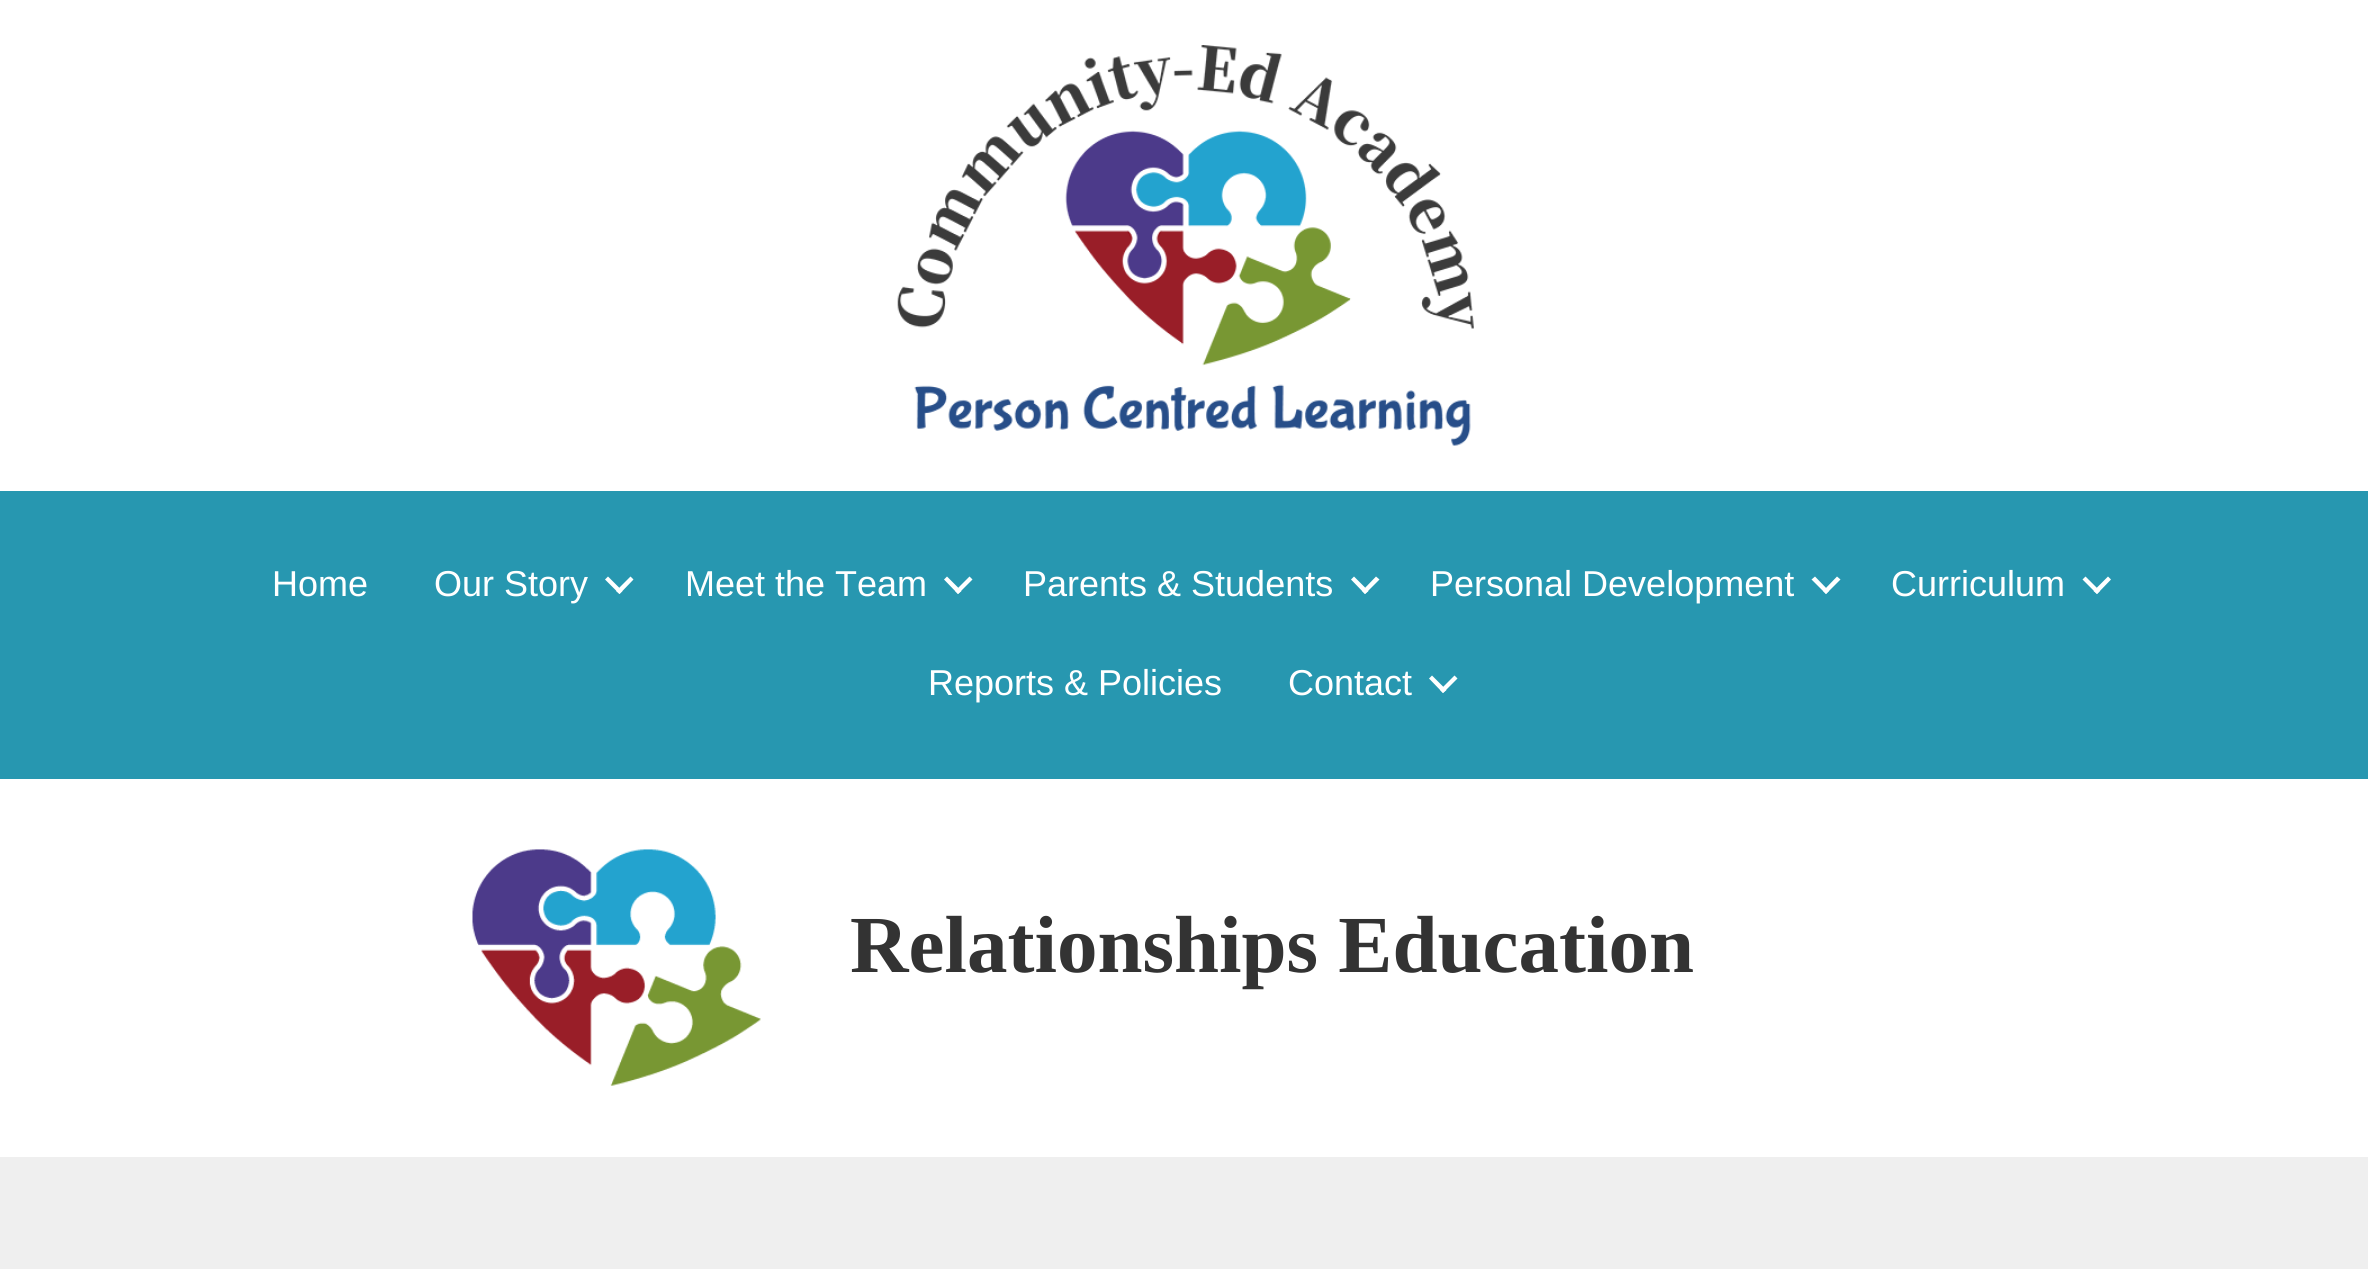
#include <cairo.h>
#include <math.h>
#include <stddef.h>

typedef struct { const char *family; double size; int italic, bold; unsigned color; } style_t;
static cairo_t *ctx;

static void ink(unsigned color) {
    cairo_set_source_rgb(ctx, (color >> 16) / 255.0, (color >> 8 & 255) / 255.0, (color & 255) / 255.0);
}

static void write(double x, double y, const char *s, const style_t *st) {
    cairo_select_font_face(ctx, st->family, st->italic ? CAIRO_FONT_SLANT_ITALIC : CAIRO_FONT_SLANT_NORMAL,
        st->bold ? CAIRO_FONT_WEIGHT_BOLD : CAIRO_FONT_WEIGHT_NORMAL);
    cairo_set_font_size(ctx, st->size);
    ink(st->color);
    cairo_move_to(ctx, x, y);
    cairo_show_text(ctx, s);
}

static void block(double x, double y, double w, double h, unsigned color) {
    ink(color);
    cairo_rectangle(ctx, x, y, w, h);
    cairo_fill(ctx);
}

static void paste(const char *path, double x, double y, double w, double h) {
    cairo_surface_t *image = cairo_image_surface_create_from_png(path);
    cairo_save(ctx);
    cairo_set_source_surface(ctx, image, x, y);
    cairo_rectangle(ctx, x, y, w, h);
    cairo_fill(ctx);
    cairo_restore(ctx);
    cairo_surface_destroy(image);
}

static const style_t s1 = {"Liberation Sans", 36, 0, 0, 0xffffff};
static const style_t s2 = {"Liberation Serif", 81, 0, 1, 0x333333};

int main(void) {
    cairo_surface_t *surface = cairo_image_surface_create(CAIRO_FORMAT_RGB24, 2368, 1269);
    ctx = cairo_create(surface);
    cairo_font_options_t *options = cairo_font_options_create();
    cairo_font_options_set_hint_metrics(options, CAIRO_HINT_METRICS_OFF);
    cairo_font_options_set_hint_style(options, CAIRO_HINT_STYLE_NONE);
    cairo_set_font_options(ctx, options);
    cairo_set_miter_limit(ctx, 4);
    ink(0xefefef);
    cairo_paint(ctx);
    block(0, 0, 2368, 491, 0xffffff);
    paste("pic1.png", 897, 45, 577, 401);
    block(0, 491, 2368, 288, 0x2797b0);
    write(272, 596, "Home", &s1);
    write(434, 596, "Our Story", &s1);
    cairo_new_path(ctx);
    cairo_move_to(ctx, 630.5, 576.5);
    cairo_line_to(ctx, 633.5, 579.5);
    cairo_line_to(ctx, 619.5, 594);
    cairo_line_to(ctx, 616, 591);
    cairo_close_path(ctx);
    cairo_fill(ctx);
    cairo_new_path(ctx);
    cairo_move_to(ctx, 608, 576.5);
    cairo_line_to(ctx, 622.5, 591);
    cairo_line_to(ctx, 619.5, 594);
    cairo_line_to(ctx, 605, 579.5);
    cairo_close_path(ctx);
    cairo_fill(ctx);
    write(685, 596, "Meet the Team", &s1);
    cairo_new_path(ctx);
    cairo_move_to(ctx, 969.5, 576.5);
    cairo_line_to(ctx, 972.5, 579.5);
    cairo_line_to(ctx, 958, 594);
    cairo_line_to(ctx, 955, 591);
    cairo_close_path(ctx);
    cairo_fill(ctx);
    cairo_new_path(ctx);
    cairo_move_to(ctx, 947, 576.5);
    cairo_line_to(ctx, 961.5, 591);
    cairo_line_to(ctx, 958, 594);
    cairo_line_to(ctx, 944, 579.5);
    cairo_close_path(ctx);
    cairo_fill(ctx);
    write(1023, 596, "Parents & Students", &s1);
    cairo_new_path(ctx);
    cairo_move_to(ctx, 1376, 576.5);
    cairo_line_to(ctx, 1379.5, 579.5);
    cairo_line_to(ctx, 1365, 594);
    cairo_line_to(ctx, 1362, 591);
    cairo_close_path(ctx);
    cairo_fill(ctx);
    cairo_new_path(ctx);
    cairo_move_to(ctx, 1354, 576.5);
    cairo_line_to(ctx, 1368.5, 591);
    cairo_line_to(ctx, 1365, 594);
    cairo_line_to(ctx, 1351, 579.5);
    cairo_close_path(ctx);
    cairo_fill(ctx);
    write(1430, 596, "Personal Development", &s1);
    cairo_new_path(ctx);
    cairo_move_to(ctx, 1837, 576.5);
    cairo_line_to(ctx, 1840.5, 579.5);
    cairo_line_to(ctx, 1826, 594);
    cairo_line_to(ctx, 1823, 591);
    cairo_close_path(ctx);
    cairo_fill(ctx);
    cairo_new_path(ctx);
    cairo_move_to(ctx, 1815, 576.5);
    cairo_line_to(ctx, 1829, 591);
    cairo_line_to(ctx, 1826, 594);
    cairo_line_to(ctx, 1811.5, 579.5);
    cairo_close_path(ctx);
    cairo_fill(ctx);
    write(1891, 596, "Curriculum", &s1);
    cairo_new_path(ctx);
    cairo_move_to(ctx, 2108, 576.5);
    cairo_line_to(ctx, 2111, 579.5);
    cairo_line_to(ctx, 2097, 594);
    cairo_line_to(ctx, 2093.5, 591);
    cairo_close_path(ctx);
    cairo_fill(ctx);
    cairo_new_path(ctx);
    cairo_move_to(ctx, 2085.5, 576.5);
    cairo_line_to(ctx, 2100, 591);
    cairo_line_to(ctx, 2097, 594);
    cairo_line_to(ctx, 2082.5, 579.5);
    cairo_close_path(ctx);
    cairo_fill(ctx);
    write(928, 695, "Reports & Policies", &s1);
    write(1288, 695, "Contact", &s1);
    cairo_new_path(ctx);
    cairo_move_to(ctx, 1454.5, 675.5);
    cairo_line_to(ctx, 1457.5, 678.5);
    cairo_line_to(ctx, 1443, 693);
    cairo_line_to(ctx, 1440, 690);
    cairo_close_path(ctx);
    cairo_fill(ctx);
    cairo_new_path(ctx);
    cairo_move_to(ctx, 1432, 675.5);
    cairo_line_to(ctx, 1446.5, 690);
    cairo_line_to(ctx, 1443, 693);
    cairo_line_to(ctx, 1429, 678.5);
    cairo_close_path(ctx);
    cairo_fill(ctx);
    block(0, 779, 2368, 378, 0xffffff);
    paste("pic2.png", 472, 849, 289, 237);
    write(850, 972, "Relationships Education", &s2);
    cairo_surface_write_to_png(surface, "screenshot.png");
    cairo_font_options_destroy(options);
    cairo_destroy(ctx);
    cairo_surface_destroy(surface);
    return 0;
}
